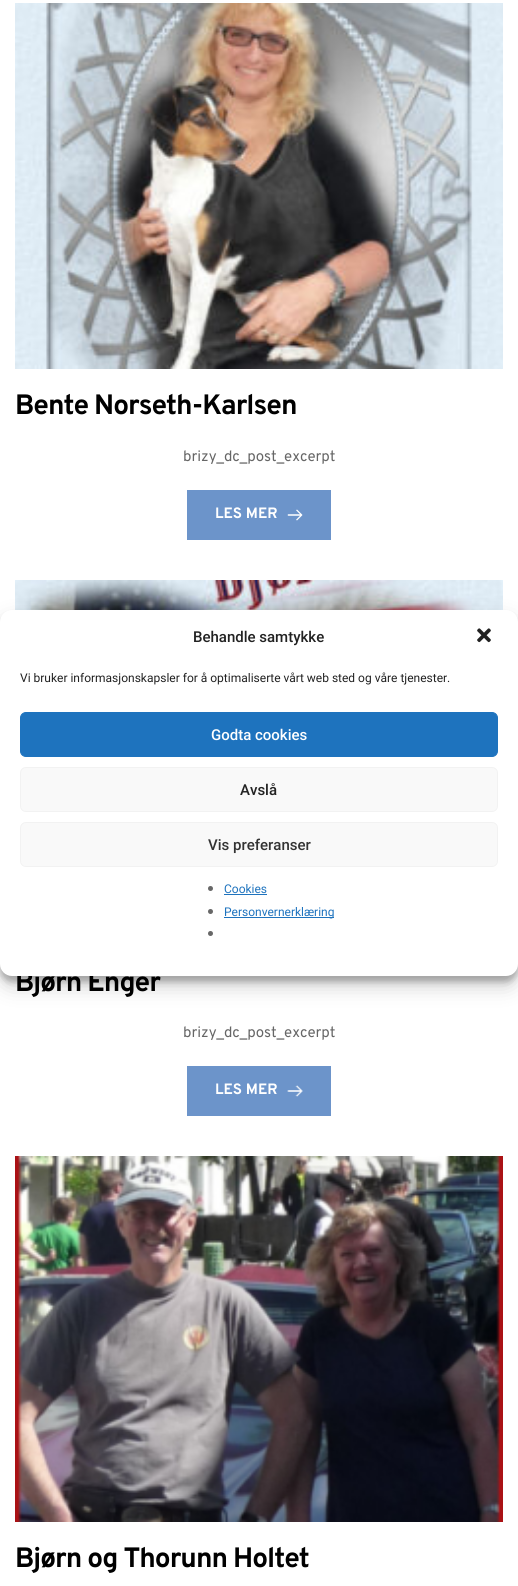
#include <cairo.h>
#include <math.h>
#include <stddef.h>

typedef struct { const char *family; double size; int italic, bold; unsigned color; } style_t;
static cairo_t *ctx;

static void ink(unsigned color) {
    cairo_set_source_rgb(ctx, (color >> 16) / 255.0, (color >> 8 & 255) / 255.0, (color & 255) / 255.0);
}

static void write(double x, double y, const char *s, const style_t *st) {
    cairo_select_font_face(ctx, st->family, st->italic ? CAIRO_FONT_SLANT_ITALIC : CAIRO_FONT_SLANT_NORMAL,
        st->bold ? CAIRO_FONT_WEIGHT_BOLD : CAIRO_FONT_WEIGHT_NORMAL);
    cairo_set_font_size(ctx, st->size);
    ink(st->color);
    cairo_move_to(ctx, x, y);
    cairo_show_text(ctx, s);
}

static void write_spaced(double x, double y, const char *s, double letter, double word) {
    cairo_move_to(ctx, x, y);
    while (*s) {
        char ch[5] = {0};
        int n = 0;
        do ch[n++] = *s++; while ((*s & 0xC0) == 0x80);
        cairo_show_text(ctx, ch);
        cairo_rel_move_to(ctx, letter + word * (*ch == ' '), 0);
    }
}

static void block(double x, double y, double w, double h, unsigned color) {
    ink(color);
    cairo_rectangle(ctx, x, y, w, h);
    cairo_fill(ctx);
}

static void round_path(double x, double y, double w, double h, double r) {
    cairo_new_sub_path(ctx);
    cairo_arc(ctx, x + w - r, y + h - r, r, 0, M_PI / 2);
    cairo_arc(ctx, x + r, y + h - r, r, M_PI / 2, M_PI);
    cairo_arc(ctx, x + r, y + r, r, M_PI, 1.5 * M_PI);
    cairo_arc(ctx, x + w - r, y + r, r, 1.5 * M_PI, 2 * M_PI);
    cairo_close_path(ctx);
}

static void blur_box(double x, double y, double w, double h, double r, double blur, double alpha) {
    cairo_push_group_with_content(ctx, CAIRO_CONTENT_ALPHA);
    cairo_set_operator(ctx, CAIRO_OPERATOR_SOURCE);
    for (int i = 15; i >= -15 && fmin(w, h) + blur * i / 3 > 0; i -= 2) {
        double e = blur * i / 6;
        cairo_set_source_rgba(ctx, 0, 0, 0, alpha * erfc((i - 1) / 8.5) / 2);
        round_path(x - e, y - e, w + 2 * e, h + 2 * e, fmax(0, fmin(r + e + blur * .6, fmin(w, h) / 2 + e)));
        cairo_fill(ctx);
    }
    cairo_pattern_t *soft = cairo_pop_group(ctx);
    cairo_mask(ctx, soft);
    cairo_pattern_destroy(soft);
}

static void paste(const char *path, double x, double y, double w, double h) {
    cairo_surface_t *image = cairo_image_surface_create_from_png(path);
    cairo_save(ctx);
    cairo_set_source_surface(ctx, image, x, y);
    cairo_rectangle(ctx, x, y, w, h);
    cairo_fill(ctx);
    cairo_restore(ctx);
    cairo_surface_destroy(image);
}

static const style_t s1 = {"Overpass", 15, 0, 0, 0x666666};
static const style_t s2 = {"Overpass", 15, 0, 1, 0xffffff};
static const style_t s3 = {"Roboto Medium", 15, 0, 0, 0x222222};
static const style_t s4 = {"Roboto", 12, 0, 0, 0x222222};
static const style_t s5 = {"Roboto Medium", 15, 0, 0, 0xffffff};
static const style_t s6 = {"Roboto Medium", 15, 0, 0, 0x333333};
static const style_t s7 = {"Roboto", 12, 0, 0, 0x1e73be};

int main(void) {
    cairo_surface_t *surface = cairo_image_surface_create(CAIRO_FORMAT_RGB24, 518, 1586);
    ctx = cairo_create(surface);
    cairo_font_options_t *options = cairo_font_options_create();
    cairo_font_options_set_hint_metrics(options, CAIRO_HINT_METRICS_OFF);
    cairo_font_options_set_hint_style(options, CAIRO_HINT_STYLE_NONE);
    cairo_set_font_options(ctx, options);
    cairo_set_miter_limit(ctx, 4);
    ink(0xffffff);
    cairo_paint(ctx);
    paste("pic1.png", 15, 3, 488, 366);
    cairo_select_font_face(ctx, "Overpass", CAIRO_FONT_SLANT_NORMAL, CAIRO_FONT_WEIGHT_BOLD);
    cairo_set_font_size(ctx, 28);
    ink(0x000000);
    write_spaced(15, 414, "Bente Norseth-Karlsen", -1, 0);
    write(183, 461, "brizy_dc_post_excerpt", &s1);
    block(187, 490, 144, 50, 0x6c94ca);
    write(215, 518, "LES MER", &s2);
    paste("pic2.png", 287, 509, 16, 12);
    paste("pic3.png", 15, 580, 488, 30);
    cairo_set_font_size(ctx, 28);
    ink(0x000000);
    write_spaced(15, 991, "Bjørn Enger", -1, 0);
    write(183, 1037, "brizy_dc_post_excerpt", &s1);
    block(187, 1066, 144, 50, 0x6c94ca);
    write(215, 1094, "LES MER", &s2);
    paste("pic4.png", 287, 1085, 16, 12);
    paste("pic5.png", 15, 1156, 488, 366);
    cairo_set_font_size(ctx, 28);
    ink(0x000000);
    write_spaced(15, 1567, "Bjørn og Thorunn Holtet", -1, 0);
    ink(0x000000);
    blur_box(0, 616, 518, 366, 12, 3, 0.23);
    blur_box(0, 620, 518, 366, 12, 10, 0.19);
    ink(0xffffff);
    round_path(0, 610, 518, 366, 12);
    cairo_fill(ctx);
    write(193, 642, "Behandle samtykke", &s3);
    paste("pic6.png", 477, 628, 14, 15);
    write(20, 682, "Vi bruker informasjonskapsler for å optimaliserte vårt web sted og våre tjenester.", &s4);
    ink(0x1e73be);
    round_path(20.5, 712.5, 477, 44, 5.5);
    cairo_fill_preserve(ctx);
    cairo_set_line_width(ctx, 1);
    cairo_stroke(ctx);
    write(211, 740, "Godta cookies", &s5);
    ink(0xf9f9f9);
    round_path(20.5, 767.5, 477, 44, 5.5);
    cairo_fill_preserve(ctx);
    ink(0xf2f2f2);
    cairo_stroke(ctx);
    write(240, 795, "Avslå", &s3);
    ink(0xf9f9f9);
    round_path(20.5, 822.5, 477, 44, 5.5);
    cairo_fill_preserve(ctx);
    ink(0xf2f2f2);
    cairo_stroke(ctx);
    write(208, 850, "Vis preferanser", &s6);
    ink(0x676767);
    cairo_new_path(ctx);
    cairo_arc(ctx, 210.5, 888.5, 2.5, 0, 2 * M_PI);
    cairo_fill(ctx);
    write(224, 893, "Cookies", &s7);
    block(224, 894, 43, 1, 0x1e73be);
    ink(0x676767);
    cairo_new_path(ctx);
    cairo_arc(ctx, 210.5, 911.5, 2.5, 0, 2 * M_PI);
    cairo_fill(ctx);
    block(224, 917, 110, 1, 0x1e73be);
    write(224, 916, "Personvernerklæring", &s7);
    ink(0x676767);
    cairo_new_path(ctx);
    cairo_arc(ctx, 210.5, 933.5, 2.5, 0, 2 * M_PI);
    cairo_fill(ctx);
    cairo_surface_write_to_png(surface, "screenshot.png");
    cairo_font_options_destroy(options);
    cairo_destroy(ctx);
    cairo_surface_destroy(surface);
    return 0;
}
